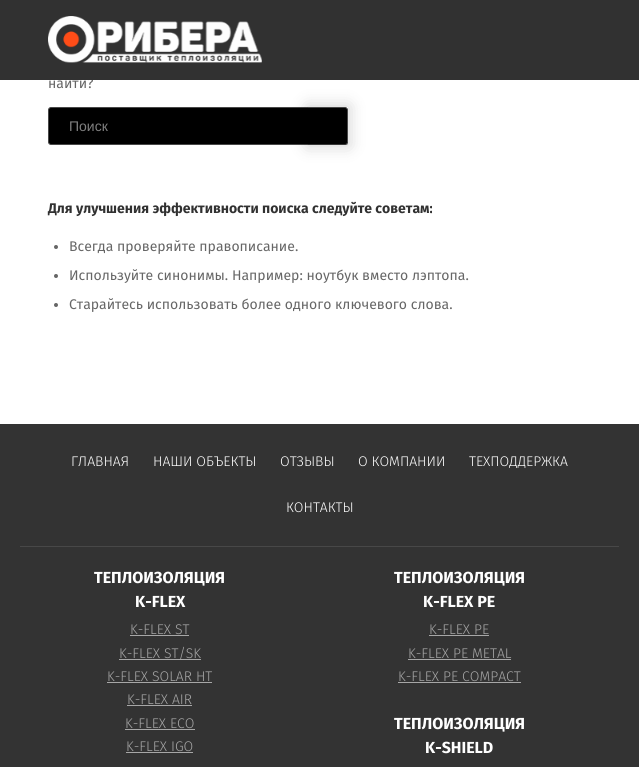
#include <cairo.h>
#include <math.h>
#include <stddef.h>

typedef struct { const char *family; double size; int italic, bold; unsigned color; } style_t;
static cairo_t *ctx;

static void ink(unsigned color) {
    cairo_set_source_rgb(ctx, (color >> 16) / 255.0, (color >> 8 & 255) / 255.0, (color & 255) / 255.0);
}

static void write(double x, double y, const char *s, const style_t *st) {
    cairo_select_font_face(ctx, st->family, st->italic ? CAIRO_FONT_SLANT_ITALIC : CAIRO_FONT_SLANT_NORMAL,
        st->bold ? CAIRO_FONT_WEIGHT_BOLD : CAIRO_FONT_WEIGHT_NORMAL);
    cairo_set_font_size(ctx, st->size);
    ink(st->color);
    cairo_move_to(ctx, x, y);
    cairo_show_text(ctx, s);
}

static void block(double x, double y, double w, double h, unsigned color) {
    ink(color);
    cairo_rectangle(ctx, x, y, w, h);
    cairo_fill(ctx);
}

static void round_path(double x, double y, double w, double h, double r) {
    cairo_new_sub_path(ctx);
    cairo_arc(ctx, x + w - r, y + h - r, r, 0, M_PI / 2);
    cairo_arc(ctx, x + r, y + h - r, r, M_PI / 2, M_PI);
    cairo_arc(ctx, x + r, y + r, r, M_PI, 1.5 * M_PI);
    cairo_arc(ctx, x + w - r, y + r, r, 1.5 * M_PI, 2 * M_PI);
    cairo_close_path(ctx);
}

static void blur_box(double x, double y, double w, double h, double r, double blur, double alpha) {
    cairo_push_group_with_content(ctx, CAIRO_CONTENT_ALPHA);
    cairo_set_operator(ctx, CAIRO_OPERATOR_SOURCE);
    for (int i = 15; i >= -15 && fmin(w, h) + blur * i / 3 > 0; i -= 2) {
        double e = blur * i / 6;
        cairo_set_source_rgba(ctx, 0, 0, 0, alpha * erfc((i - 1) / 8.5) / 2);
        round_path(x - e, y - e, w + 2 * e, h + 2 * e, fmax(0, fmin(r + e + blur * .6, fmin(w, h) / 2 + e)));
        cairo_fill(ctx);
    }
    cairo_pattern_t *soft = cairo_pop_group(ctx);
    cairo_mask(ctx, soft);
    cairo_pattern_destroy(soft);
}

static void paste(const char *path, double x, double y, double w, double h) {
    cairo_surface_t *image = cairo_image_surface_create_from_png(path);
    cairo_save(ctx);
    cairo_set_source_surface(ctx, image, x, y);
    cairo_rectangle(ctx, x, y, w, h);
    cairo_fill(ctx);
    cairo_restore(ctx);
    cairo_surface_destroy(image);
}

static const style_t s1 = {"Fira Sans", 14, 0, 0, 0x666666};
static const style_t s2 = {"Liberation Sans", 14, 0, 0, 0x808080};
static const style_t s3 = {"Fira Sans", 14, 0, 1, 0x313131};
static const style_t s4 = {"Fira Sans Light", 14, 0, 0, 0xffffff};
static const style_t s5 = {"Fira Sans", 16, 0, 1, 0xffffff};
static const style_t s6 = {"Fira Sans Light", 14, 0, 0, 0xa7a7a7};

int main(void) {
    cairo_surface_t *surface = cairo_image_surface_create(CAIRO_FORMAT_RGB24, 639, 767);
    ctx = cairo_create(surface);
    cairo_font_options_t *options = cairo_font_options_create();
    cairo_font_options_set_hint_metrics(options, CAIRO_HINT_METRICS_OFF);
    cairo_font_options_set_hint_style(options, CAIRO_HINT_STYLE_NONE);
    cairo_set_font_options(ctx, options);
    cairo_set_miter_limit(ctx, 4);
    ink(0xffffff);
    cairo_paint(ctx);
    write(48, 88, "найти?", &s1);
    block(0, 0, 639, 80, 0x313131);
    paste("pic1.png", 48, 16, 214, 47);
    ink(0x000000);
    round_path(48.5, 107.5, 299, 37, 2.5);
    cairo_fill_preserve(ctx);
    ink(0x484848);
    cairo_set_line_width(ctx, 1);
    cairo_stroke(ctx);
    write(69, 131, "Поиск", &s2);
    cairo_save(ctx);
    cairo_set_fill_rule(ctx, CAIRO_FILL_RULE_EVEN_ODD);
    cairo_new_path(ctx);
    cairo_move_to(ctx, 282, 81);
    cairo_line_to(ctx, 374, 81);
    cairo_line_to(ctx, 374, 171);
    cairo_line_to(ctx, 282, 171);
    cairo_close_path(ctx);
    cairo_move_to(ctx, 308, 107);
    cairo_line_to(ctx, 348, 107);
    cairo_line_to(ctx, 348, 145);
    cairo_line_to(ctx, 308, 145);
    cairo_close_path(ctx);
    cairo_clip(ctx);
    ink(0x000000);
    blur_box(307, 106, 42, 40, 0, 8, 0.19);
    cairo_restore(ctx);
    cairo_set_source_rgba(ctx, 0, 0, 0, 0.25);
    cairo_rectangle(ctx, 308, 142, 40, 3);
    cairo_fill(ctx);
    write(48, 213, "Для улучшения эффективности поиска следуйте советам:", &s3);
    ink(0x666666);
    cairo_new_path(ctx);
    cairo_arc(ctx, 56, 247, 2, 0, 2 * M_PI);
    cairo_fill(ctx);
    write(69, 251, "Всегда проверяйте правописание.", &s1);
    cairo_new_path(ctx);
    cairo_arc(ctx, 56, 276, 2, 0, 2 * M_PI);
    cairo_fill(ctx);
    write(69, 280, "Используйте синонимы. Например: ноутбук вместо лэптопа.", &s1);
    cairo_new_path(ctx);
    cairo_arc(ctx, 56, 305, 2, 0, 2 * M_PI);
    cairo_fill(ctx);
    write(69, 309, "Старайтесь использовать более одного ключевого слова.", &s1);
    block(0, 424, 639, 343, 0x333333);
    block(20, 546, 599, 1, 0x484848);
    write(71, 466, "ГЛАВНАЯ", &s4);
    write(153, 466, "НАШИ ОБЪЕКТЫ", &s4);
    write(280, 466, "ОТЗЫВЫ", &s4);
    write(358, 466, "О КОМПАНИИ", &s4);
    write(469, 466, "ТЕХПОДДЕРЖКА", &s4);
    write(286, 512, "КОНТАКТЫ", &s4);
    write(94, 583, "ТЕПЛОИЗОЛЯЦИЯ", &s5);
    write(135, 607, "K-FLEX", &s5);
    write(130, 634, "K-FLEX ST", &s6);
    block(130, 635, 59, 1, 0xa7a7a7);
    block(119, 659, 82, 1, 0xa7a7a7);
    write(119, 658, "K-FLEX ST/SK", &s6);
    write(107, 681, "K-FLEX SOLAR HT", &s6);
    block(107, 682, 105, 1, 0xa7a7a7);
    write(127, 704, "K-FLEX AIR", &s6);
    block(127, 705, 65, 1, 0xa7a7a7);
    write(125, 728, "K-FLEX ECO", &s6);
    block(125, 729, 70, 1, 0xa7a7a7);
    write(126, 751, "K-FLEX IGO", &s6);
    block(126, 752, 67, 1, 0xa7a7a7);
    write(394, 583, "ТЕПЛОИЗОЛЯЦИЯ", &s5);
    write(423, 607, "K-FLEX PE", &s5);
    write(429, 634, "K-FLEX PE", &s6);
    block(429, 635, 60, 1, 0xa7a7a7);
    write(408, 658, "K-FLEX PE METAL", &s6);
    block(408, 659, 103, 1, 0xa7a7a7);
    write(398, 681, "K-FLEX PE COMPACT", &s6);
    block(398, 682, 123, 1, 0xa7a7a7);
    write(394, 729, "ТЕПЛОИЗОЛЯЦИЯ", &s5);
    write(425, 753, "K-SHIELD", &s5);
    cairo_surface_write_to_png(surface, "screenshot.png");
    cairo_font_options_destroy(options);
    cairo_destroy(ctx);
    cairo_surface_destroy(surface);
    return 0;
}
